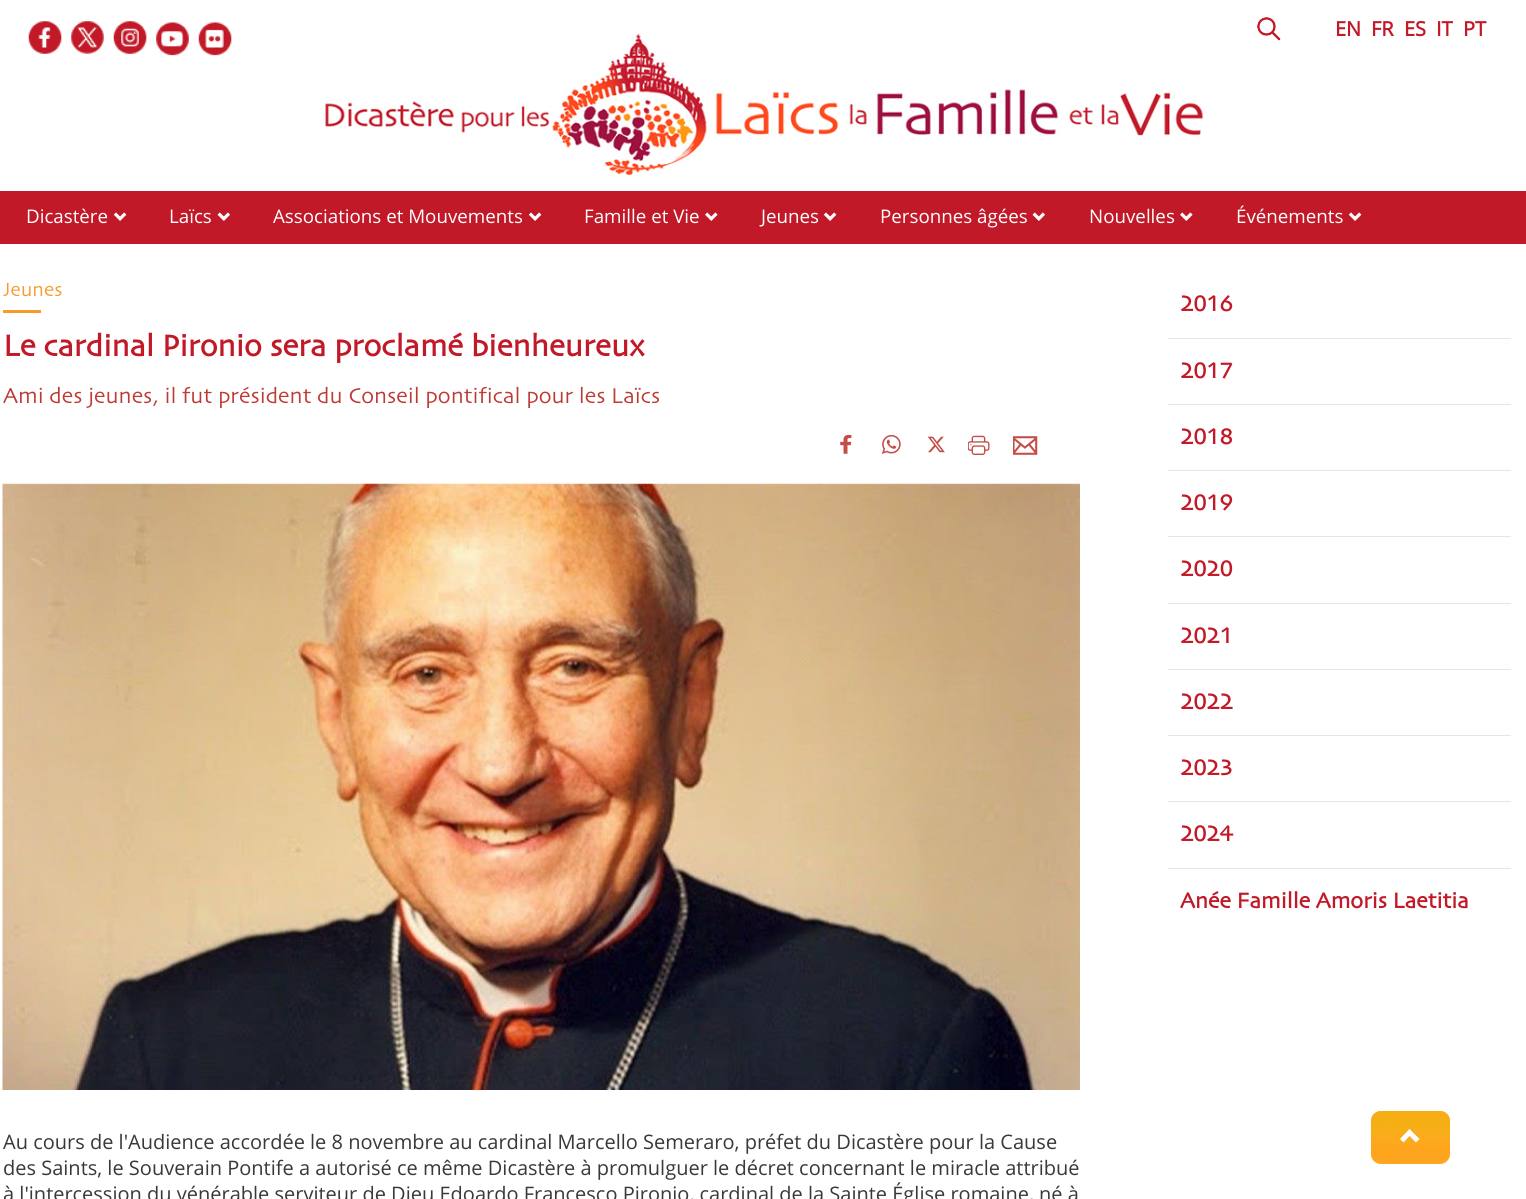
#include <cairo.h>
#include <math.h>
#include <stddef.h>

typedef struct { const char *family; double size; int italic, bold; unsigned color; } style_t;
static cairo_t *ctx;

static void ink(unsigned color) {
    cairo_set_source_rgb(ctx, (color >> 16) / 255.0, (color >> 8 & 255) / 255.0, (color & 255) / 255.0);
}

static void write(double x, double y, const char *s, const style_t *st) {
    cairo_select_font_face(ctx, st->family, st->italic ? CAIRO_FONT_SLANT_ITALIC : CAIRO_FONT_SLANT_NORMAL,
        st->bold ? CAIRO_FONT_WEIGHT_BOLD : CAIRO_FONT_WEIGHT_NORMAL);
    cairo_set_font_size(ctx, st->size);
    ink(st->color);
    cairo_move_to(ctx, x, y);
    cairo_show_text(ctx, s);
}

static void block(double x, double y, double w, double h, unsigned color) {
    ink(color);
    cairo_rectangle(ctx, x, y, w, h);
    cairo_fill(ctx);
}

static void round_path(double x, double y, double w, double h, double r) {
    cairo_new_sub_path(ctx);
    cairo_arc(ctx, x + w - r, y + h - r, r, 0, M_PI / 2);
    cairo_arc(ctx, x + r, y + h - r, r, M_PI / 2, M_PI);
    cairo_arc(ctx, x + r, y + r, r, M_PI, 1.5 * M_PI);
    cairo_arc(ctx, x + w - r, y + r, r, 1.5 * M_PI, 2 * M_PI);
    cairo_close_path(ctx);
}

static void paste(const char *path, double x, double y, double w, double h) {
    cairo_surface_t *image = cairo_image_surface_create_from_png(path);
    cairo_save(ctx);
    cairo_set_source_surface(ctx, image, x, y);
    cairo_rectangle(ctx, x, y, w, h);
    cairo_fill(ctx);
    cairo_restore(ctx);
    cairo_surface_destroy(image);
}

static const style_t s1 = {"Open Sans", 20, 0, 1, 0xc21928};
static const style_t s2 = {"Open Sans", 18.75, 0, 0, 0xffffff};
static const style_t s3 = {"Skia", 20, 0, 0, 0xf79b2d};
static const style_t s4 = {"Skia", 31.25, 0, 1, 0xc21928};
static const style_t s5 = {"Skia", 22.5, 0, 0, 0xbe3a34};
static const style_t s6 = {"Open Sans", 20, 0, 0, 0x393939};
static const style_t s7 = {"Skia", 22.5, 0, 1, 0xc21928};

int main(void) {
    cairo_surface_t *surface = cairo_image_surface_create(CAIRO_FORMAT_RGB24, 1526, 1199);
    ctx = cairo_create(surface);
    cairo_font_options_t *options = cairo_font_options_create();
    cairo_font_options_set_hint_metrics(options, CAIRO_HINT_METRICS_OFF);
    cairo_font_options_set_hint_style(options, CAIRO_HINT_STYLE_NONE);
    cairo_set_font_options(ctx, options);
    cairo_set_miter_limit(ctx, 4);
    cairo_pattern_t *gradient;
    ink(0xffffff);
    cairo_paint(ctx);
    paste("pic1.png", 28, 21, 34, 33);
    paste("pic2.png", 71, 21, 33, 33);
    paste("pic3.png", 113, 21, 34, 33);
    paste("pic4.png", 156, 22, 33, 34);
    paste("pic5.png", 198, 22, 34, 34);
    paste("pic6.png", 1257, 17, 24, 24);
    write(1335, 36, "EN", &s1);
    write(1371, 36, "FR", &s1);
    write(1404, 36, "ES", &s1);
    write(1436, 36, "IT", &s1);
    write(1463, 36, "PT", &s1);
    paste("pic7.png", 324, 33, 880, 142);
    block(0, 191, 1526, 53, 0xc21928);
    write(26, 223, "Dicastère", &s2);
    paste("pic8.png", 113, 212, 14, 9);
    write(169, 223, "Laïcs", &s2);
    paste("pic9.png", 217, 212, 13, 9);
    write(273, 223, "Associations et Mouvements", &s2);
    paste("pic8.png", 528, 212, 14, 9);
    write(584, 223, "Famille et Vie", &s2);
    paste("pic10.png", 705, 212, 13, 9);
    write(761, 223, "Jeunes", &s2);
    paste("pic8.png", 823, 212, 14, 9);
    write(880, 223, "Personnes âgées", &s2);
    paste("pic9.png", 1032, 212, 13, 9);
    write(1089, 223, "Nouvelles", &s2);
    paste("pic10.png", 1180, 212, 13, 9);
    write(1236, 223, "Événements", &s2);
    paste("pic8.png", 1348, 212, 14, 9);
    write(3, 296, "Jeunes", &s3);
    block(3, 310, 38, 3, 0xf79b2d);
    write(3, 356, "Le cardinal Pironio sera proclamé bienheureux", &s4);
    write(3, 403, "Ami des jeunes, il fut président du Conseil pontifical pour les Laïcs", &s5);
    paste("pic11.png", 840, 434, 12, 20);
    paste("pic12.png", 881, 434, 20, 20);
    paste("pic13.png", 927, 436, 18, 17);
    paste("pic14.png", 968, 435, 22, 20);
    paste("pic15.png", 1013, 436, 25, 19);
    paste("pic16.png", 2, 483, 1078, 607);
    write(3, 1149, "Au cours de l'Audience accordée le 8 novembre au cardinal Marcello Semeraro, préfet du Dicastère pour la Cause", &s6);
    write(3, 1175, "des Saints, le Souverain Pontife a autorisé ce même Dicastère à promulguer le décret concernant le miracle attribué", &s6);
    write(3, 1201, "à l'intercession du vénérable serviteur de Dieu Edoardo Francesco Pironio, cardinal de la Sainte Église romaine, né à", &s6);
    block(1168, 338, 343, 1, 0xe6e6e6);
    write(1180, 311, "2016", &s7);
    block(1168, 404, 343, 1, 0xe6e6e6);
    write(1180, 378, "2017", &s7);
    block(1168, 470, 343, 1, 0xe6e6e6);
    write(1180, 444, "2018", &s7);
    block(1168, 536, 343, 1, 0xe6e6e6);
    write(1180, 510, "2019", &s7);
    block(1168, 603, 343, 1, 0xe6e6e6);
    write(1180, 576, "2020", &s7);
    block(1168, 669, 343, 1, 0xe6e6e6);
    write(1180, 643, "2021", &s7);
    block(1168, 735, 343, 1, 0xe6e6e6);
    write(1180, 709, "2022", &s7);
    block(1168, 801, 343, 1, 0xe6e6e6);
    write(1180, 775, "2023", &s7);
    block(1168, 868, 343, 1, 0xe6e6e6);
    write(1180, 841, "2024", &s7);
    write(1180, 908, "Anée Famille Amoris Laetitia", &s7);
    ink(0xff9811);
    round_path(1371, 1111, 79, 53, 10);
    cairo_fill(ctx);
    gradient = cairo_pattern_create_linear(1411, 1110, 1410, 1165);
    cairo_pattern_add_color_stop_rgba(gradient, 0.32, 0.953, 0.714, 0.09, 0.74);
    cairo_pattern_add_color_stop_rgba(gradient, 0.69, 0.984, 0.773, 0.227, 0.28);
    cairo_pattern_add_color_stop_rgba(gradient, 0.99, 1, 0.808, 0.306, 0.25);
    cairo_set_source(ctx, gradient);
    cairo_pattern_destroy(gradient);
    round_path(1371, 1111, 79, 53, 10);
    cairo_fill(ctx);
    ink(0xffffff);
    cairo_new_path(ctx);
    cairo_move_to(ctx, 1419.5, 1139);
    cairo_line_to(ctx, 1416, 1142.5);
    cairo_line_to(ctx, 1409.5, 1136);
    cairo_line_to(ctx, 1403.5, 1142.5);
    cairo_line_to(ctx, 1400, 1139);
    cairo_line_to(ctx, 1409.5, 1129);
    cairo_close_path(ctx);
    cairo_fill(ctx);
    cairo_surface_write_to_png(surface, "screenshot.png");
    cairo_font_options_destroy(options);
    cairo_destroy(ctx);
    cairo_surface_destroy(surface);
    return 0;
}
